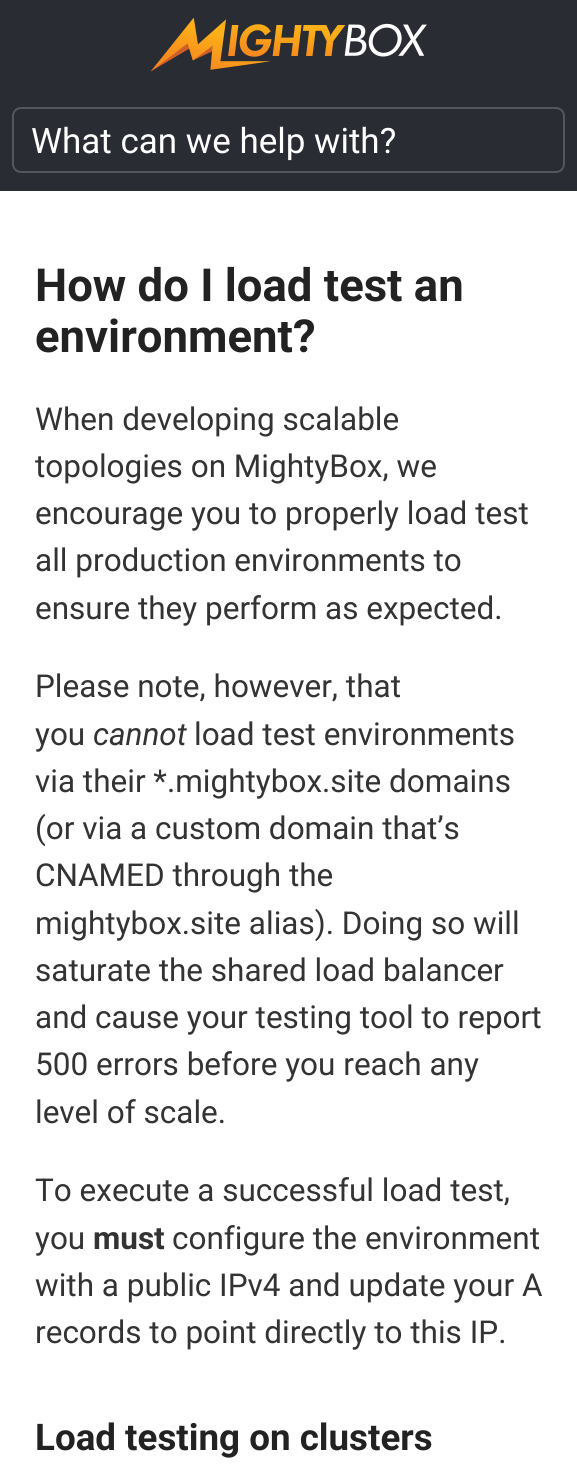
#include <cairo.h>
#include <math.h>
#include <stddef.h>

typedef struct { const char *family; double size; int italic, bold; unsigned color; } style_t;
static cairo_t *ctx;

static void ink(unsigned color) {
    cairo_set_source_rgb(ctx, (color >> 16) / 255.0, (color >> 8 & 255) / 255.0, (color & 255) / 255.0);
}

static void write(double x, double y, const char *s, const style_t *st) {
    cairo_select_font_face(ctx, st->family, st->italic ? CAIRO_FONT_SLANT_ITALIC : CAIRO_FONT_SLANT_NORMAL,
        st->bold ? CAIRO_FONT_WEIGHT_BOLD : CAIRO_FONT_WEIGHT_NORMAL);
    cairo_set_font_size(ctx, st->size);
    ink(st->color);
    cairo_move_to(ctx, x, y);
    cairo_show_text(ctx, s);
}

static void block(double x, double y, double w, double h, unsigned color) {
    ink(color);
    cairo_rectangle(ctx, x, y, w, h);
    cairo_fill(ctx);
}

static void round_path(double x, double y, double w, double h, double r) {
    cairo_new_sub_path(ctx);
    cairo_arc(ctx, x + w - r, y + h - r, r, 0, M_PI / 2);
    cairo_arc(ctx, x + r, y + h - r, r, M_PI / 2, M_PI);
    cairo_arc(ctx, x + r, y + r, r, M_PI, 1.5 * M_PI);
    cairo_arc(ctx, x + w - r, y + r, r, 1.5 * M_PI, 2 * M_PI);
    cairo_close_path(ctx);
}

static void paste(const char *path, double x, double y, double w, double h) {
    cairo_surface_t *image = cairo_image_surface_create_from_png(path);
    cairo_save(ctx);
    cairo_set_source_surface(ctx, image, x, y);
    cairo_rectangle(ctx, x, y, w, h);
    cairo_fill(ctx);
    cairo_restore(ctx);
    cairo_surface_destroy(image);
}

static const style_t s1 = {"Roboto", 35, 0, 0, 0xffffff};
static const style_t s2 = {"Roboto", 45.5, 0, 1, 0x222222};
static const style_t s3 = {"Roboto", 31.5, 0, 0, 0x333333};
static const style_t s4 = {"Roboto", 31.5, 1, 0, 0x333333};
static const style_t s5 = {"Roboto", 31.5, 0, 1, 0x333333};
static const style_t s6 = {"Roboto", 36.75, 0, 1, 0x222222};

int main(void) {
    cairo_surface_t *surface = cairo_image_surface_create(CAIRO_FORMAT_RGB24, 577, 1469);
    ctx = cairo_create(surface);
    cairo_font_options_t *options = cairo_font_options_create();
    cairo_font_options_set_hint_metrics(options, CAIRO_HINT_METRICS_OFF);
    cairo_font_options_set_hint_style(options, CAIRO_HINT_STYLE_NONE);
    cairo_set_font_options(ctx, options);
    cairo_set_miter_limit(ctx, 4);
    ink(0xffffff);
    cairo_paint(ctx);
    block(0, 0, 577, 191, 0x2a2c33);
    paste("pic1.png", 150, 18, 277, 54);
    round_path(13, 108, 551, 64, 8);
    ink(0x55565c);
    cairo_stroke(ctx);
    write(31, 153, "What can we help with?", &s1);
    write(35, 301, "How do I load test an", &s2);
    write(35, 352, "environment?", &s2);
    write(35, 430, "When developing scalable", &s3);
    write(35, 477, "topologies on MightyBox, we", &s3);
    write(35, 524, "encourage you to properly load test", &s3);
    write(35, 571, "all production environments to", &s3);
    write(35, 619, "ensure they perform as expected.", &s3);
    write(35, 697, "Please note, however, that", &s3);
    write(35, 745, "you", &s3);
    write(93, 745, "cannot", &s4);
    write(194, 745, "load test environments", &s3);
    write(35, 792, "via their *.mightybox.site domains", &s3);
    write(35, 839, "(or via a custom domain that’s", &s3);
    write(35, 886, "CNAMED through the", &s3);
    write(35, 934, "mightybox.site alias). Doing so will", &s3);
    write(35, 981, "saturate the shared load balancer", &s3);
    write(35, 1028, "and cause your testing tool to report", &s3);
    write(35, 1075, "500 errors before you reach any", &s3);
    write(35, 1123, "level of scale.", &s3);
    write(35, 1201, "To execute a successful load test,", &s3);
    write(35, 1249, "you", &s3);
    write(93, 1249, "must", &s5);
    write(172, 1249, "configure the environment", &s3);
    write(35, 1296, "with a public IPv4 and update your A", &s3);
    write(35, 1343, "records to point directly to this IP.", &s3);
    write(35, 1450, "Load testing on clusters", &s6);
    cairo_surface_write_to_png(surface, "screenshot.png");
    cairo_font_options_destroy(options);
    cairo_destroy(ctx);
    cairo_surface_destroy(surface);
    return 0;
}
